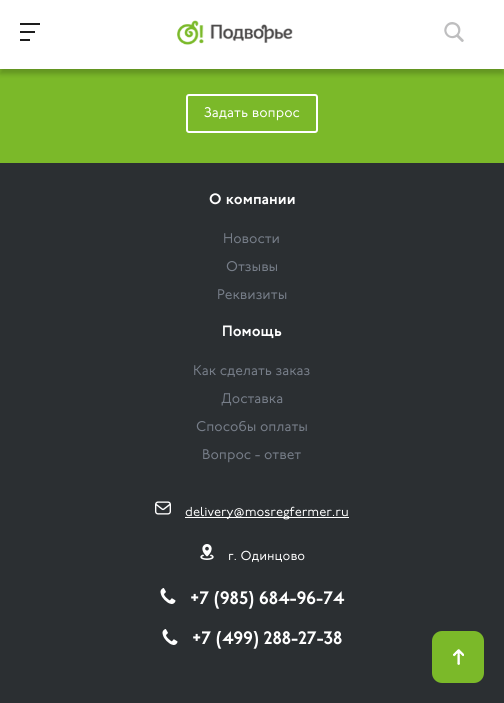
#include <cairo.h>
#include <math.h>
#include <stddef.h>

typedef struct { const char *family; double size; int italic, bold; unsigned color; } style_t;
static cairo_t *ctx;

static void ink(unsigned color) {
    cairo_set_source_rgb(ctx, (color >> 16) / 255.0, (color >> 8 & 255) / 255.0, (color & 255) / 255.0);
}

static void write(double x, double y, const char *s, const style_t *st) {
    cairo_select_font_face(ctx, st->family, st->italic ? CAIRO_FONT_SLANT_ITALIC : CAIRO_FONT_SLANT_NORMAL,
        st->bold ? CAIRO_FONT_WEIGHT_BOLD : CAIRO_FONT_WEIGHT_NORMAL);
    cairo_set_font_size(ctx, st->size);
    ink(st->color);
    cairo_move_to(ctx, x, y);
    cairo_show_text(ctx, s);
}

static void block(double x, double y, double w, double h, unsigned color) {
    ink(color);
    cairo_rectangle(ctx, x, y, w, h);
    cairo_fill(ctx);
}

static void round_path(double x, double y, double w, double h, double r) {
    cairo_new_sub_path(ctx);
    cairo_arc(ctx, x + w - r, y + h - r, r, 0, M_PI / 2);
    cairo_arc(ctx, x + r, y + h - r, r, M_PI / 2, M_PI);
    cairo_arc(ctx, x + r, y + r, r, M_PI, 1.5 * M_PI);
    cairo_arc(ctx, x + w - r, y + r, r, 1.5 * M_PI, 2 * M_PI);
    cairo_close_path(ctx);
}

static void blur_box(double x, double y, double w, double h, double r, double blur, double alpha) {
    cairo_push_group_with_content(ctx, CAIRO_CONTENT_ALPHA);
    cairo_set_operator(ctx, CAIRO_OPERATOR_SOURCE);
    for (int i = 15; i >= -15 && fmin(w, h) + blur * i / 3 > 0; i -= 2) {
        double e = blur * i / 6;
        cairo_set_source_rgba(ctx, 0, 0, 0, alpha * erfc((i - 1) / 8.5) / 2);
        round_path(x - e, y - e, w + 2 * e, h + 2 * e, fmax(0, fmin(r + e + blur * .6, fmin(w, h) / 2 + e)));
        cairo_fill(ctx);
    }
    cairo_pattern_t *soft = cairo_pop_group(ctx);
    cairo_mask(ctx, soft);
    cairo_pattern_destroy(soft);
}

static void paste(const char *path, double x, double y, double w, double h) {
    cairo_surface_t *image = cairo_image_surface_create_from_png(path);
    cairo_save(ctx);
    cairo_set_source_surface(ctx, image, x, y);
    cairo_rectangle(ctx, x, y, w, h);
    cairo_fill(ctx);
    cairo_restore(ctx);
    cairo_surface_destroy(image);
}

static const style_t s1 = {"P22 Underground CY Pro", 14, 0, 0, 0xffffff};
static const style_t s2 = {"P22 Underground CY Pro SemiBold", 15, 0, 0, 0xffffff};
static const style_t s3 = {"P22 Underground CY Pro", 14, 0, 0, 0x777e89};
static const style_t s4 = {"P22 Underground CY Pro", 13, 0, 0, 0xffffff};
static const style_t s5 = {"P22 Underground CY Pro SemiBold", 18, 0, 0, 0xffffff};

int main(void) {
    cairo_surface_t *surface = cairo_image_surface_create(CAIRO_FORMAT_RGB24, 504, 703);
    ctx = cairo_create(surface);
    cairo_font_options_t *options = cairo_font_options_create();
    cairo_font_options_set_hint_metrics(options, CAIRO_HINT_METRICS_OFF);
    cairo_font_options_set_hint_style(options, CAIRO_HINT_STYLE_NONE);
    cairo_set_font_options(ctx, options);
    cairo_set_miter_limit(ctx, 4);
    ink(0x7bb929);
    cairo_paint(ctx);
    ink(0x000000);
    blur_box(0, 5, 504, 69, 0, 2.5, 0.2);
    block(0, 0, 504, 69, 0xffffff);
    paste("pic1.png", 20, 23, 20, 18);
    paste("pic2.png", 177, 20, 116, 25);
    paste("pic3.png", 444, 22, 20, 20);
    block(0, 163, 504, 540, 0x2b2f32);
    ink(0x7bb929);
    round_path(432, 631, 52, 52, 10);
    cairo_fill(ctx);
    paste("pic4.png", 453, 649, 11, 16);
    round_path(187, 95, 130, 37, 2);
    ink(0xffffff);
    cairo_stroke(ctx);
    write(204, 117, "Задать вопрос", &s1);
    write(209, 204, "О компании", &s2);
    write(223, 243, "Новости", &s3);
    write(226, 271, "Отзывы", &s3);
    write(217, 299, "Реквизиты", &s3);
    write(222, 336, "Помощь", &s2);
    write(193, 375, "Как сделать заказ", &s3);
    write(221, 403, "Доставка", &s3);
    write(196, 431, "Способы оплаты", &s3);
    write(202, 459, "Вопрос - ответ", &s3);
    paste("pic5.png", 155, 501, 16, 14);
    block(185, 517, 164, 1, 0xffffff);
    write(185, 516, "delivery@mosregfermer.ru", &s4);
    paste("pic6.png", 200, 544, 14, 16);
    write(228, 560, "г. Одинцово", &s4);
    paste("pic7.png", 160, 588, 16, 16);
    write(190, 604, "+7 (985) 684-96-74", &s5);
    paste("pic7.png", 162, 629, 16, 16);
    write(192, 644, "+7 (499) 288-27-38", &s5);
    cairo_surface_write_to_png(surface, "screenshot.png");
    cairo_font_options_destroy(options);
    cairo_destroy(ctx);
    cairo_surface_destroy(surface);
    return 0;
}
